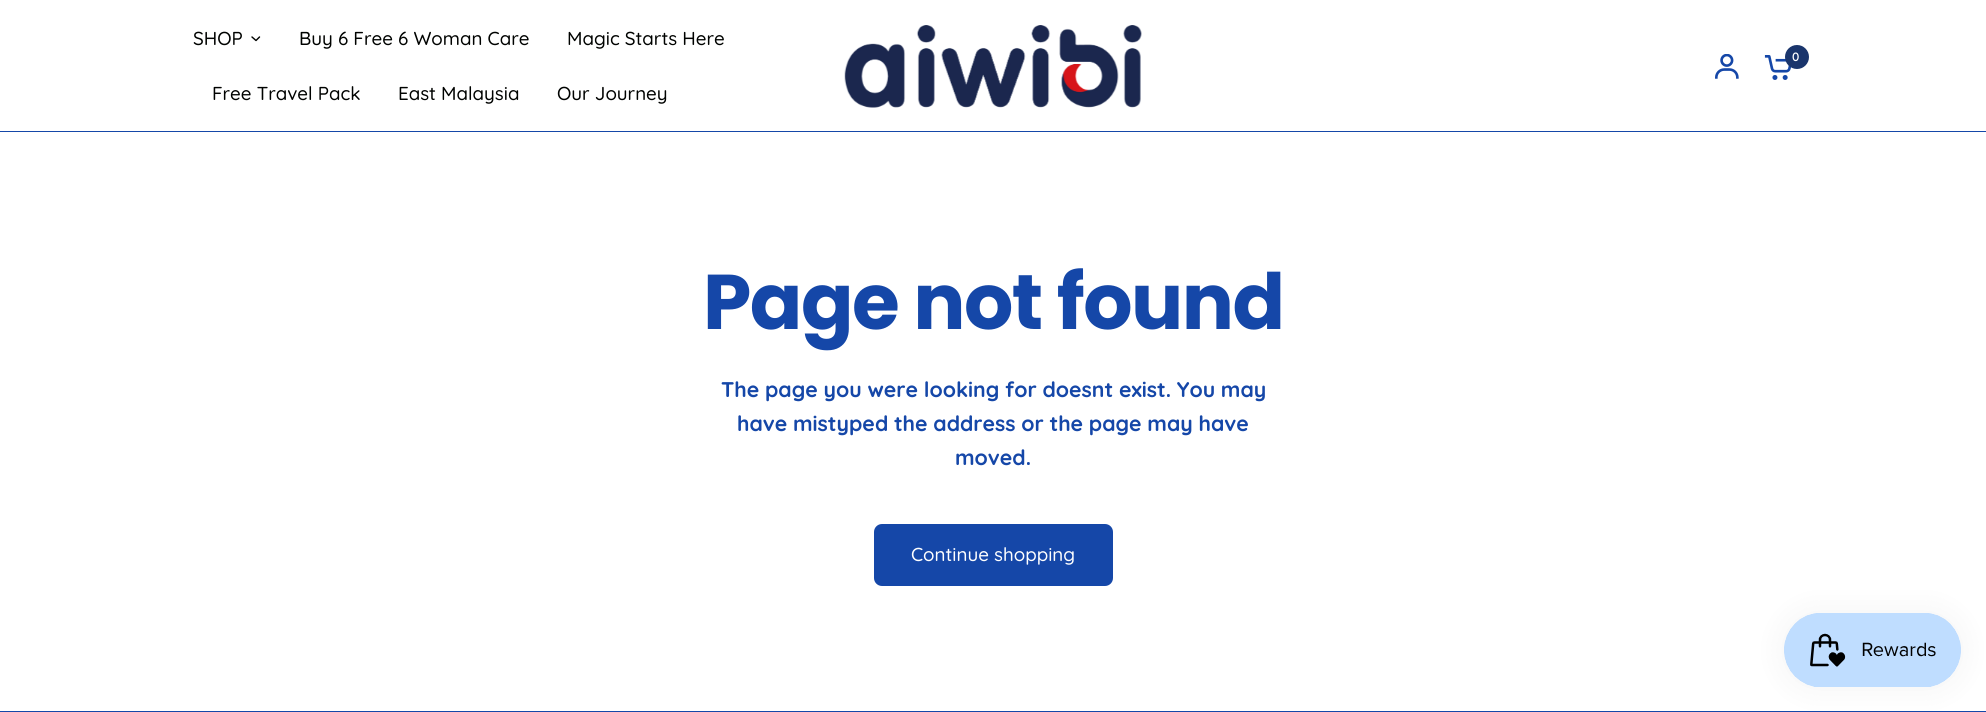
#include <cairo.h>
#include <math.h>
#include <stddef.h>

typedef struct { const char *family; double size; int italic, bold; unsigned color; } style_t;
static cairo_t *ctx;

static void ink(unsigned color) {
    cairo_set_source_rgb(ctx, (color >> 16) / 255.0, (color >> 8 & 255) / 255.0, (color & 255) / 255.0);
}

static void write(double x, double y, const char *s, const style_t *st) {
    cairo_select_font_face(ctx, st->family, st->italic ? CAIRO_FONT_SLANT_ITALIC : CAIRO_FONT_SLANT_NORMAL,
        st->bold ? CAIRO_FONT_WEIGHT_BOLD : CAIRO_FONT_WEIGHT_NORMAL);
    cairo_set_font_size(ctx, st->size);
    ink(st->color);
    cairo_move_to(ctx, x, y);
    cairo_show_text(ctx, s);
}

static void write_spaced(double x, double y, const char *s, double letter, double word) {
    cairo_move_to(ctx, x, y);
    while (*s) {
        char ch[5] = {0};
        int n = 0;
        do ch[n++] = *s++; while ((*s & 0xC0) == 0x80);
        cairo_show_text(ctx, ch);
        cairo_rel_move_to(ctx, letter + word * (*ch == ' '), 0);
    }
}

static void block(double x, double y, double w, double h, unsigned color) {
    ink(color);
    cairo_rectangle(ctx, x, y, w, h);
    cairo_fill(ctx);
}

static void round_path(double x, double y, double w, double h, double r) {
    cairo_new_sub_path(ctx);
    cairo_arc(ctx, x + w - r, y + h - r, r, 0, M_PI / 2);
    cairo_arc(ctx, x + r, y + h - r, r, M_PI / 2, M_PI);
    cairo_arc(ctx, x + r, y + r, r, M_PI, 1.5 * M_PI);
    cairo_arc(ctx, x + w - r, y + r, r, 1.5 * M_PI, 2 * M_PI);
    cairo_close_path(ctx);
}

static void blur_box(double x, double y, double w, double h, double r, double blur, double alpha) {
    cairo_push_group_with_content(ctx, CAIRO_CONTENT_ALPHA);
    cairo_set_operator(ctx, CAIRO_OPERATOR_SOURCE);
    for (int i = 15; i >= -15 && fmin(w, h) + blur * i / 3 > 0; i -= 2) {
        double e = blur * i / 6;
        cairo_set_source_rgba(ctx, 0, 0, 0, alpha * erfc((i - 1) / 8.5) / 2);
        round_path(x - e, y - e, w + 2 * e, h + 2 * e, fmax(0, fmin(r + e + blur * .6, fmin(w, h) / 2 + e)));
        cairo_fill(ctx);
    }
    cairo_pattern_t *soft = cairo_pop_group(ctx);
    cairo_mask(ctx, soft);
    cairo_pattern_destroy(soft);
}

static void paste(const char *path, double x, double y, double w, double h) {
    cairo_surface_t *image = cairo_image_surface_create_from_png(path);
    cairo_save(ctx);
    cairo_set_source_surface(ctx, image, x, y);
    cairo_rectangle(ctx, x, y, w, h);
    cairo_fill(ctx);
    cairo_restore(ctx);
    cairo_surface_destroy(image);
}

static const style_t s1 = {"Quicksand Medium", 18.75, 0, 0, 0x000200};
static const style_t s2 = {"Quicksand SemiBold", 12, 0, 0, 0xffffff};
static const style_t s3 = {"Quicksand", 21.25, 0, 1, 0x1547a8};
static const style_t s4 = {"Quicksand Medium", 18.75, 0, 0, 0xffffff};

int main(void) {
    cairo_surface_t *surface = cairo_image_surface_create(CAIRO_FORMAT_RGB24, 1986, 712);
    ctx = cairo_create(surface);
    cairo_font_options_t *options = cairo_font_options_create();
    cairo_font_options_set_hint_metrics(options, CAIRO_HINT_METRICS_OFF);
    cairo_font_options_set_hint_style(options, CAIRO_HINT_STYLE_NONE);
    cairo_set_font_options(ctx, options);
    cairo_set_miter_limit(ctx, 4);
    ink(0x1547a8);
    cairo_paint(ctx);
    block(0, 0, 1986, 711, 0xffffff);
    write(193, 45, "SHOP", &s1);
    cairo_new_path(ctx);
    cairo_move_to(ctx, 259.5, 37);
    cairo_line_to(ctx, 256, 40.5);
    cairo_line_to(ctx, 252, 37);
    cairo_set_line_width(ctx, 1.4);
    cairo_set_line_cap(ctx, CAIRO_LINE_CAP_ROUND);
    cairo_set_line_join(ctx, CAIRO_LINE_JOIN_ROUND);
    cairo_stroke(ctx);
    write(299, 45, "Buy 6 Free 6 Woman Care", &s1);
    write(567, 45, "Magic Starts Here", &s1);
    write(212, 100, "Free Travel Pack", &s1);
    write(398, 100, "East Malaysia", &s1);
    write(557, 100, "Our Journey", &s1);
    paste("pic1.png", 844, 25, 298, 83);
    paste("pic2.png", 1715, 54, 24, 25);
    paste("pic3.png", 1764, 55, 28, 25);
    ink(0x1a356c);
    cairo_arc(ctx, 1797, 57, 12, 0, 2 * M_PI);
    cairo_fill(ctx);
    write(1792, 61, "0", &s2);
    block(0, 131, 1986, 1, 0x1547a8);
    cairo_select_font_face(ctx, "Poppins", CAIRO_FONT_SLANT_NORMAL, CAIRO_FONT_WEIGHT_BOLD);
    cairo_set_font_size(ctx, 77.5);
    write_spaced(703, 329, "Page not found", -1.5, 0);
    cairo_select_font_face(ctx, "Quicksand", CAIRO_FONT_SLANT_NORMAL, CAIRO_FONT_WEIGHT_BOLD);
    cairo_set_font_size(ctx, 21.25);
    write_spaced(721, 397, "The page you were looking for doesnt exist. You may", 0, -0.25);
    write_spaced(737, 431, "have mistyped the address or the page may have", 0, -0.25);
    write(955, 465, "moved.", &s3);
    round_path(874, 524, 239, 62, 8);
    cairo_fill(ctx);
    write(911, 561, "Continue shopping", &s4);
    ink(0x000000);
    blur_box(1784, 613, 177, 75, 37.5, 15.5, 0.05);
    paste("pic4.png", 1784, 613, 177, 74);
    cairo_surface_write_to_png(surface, "screenshot.png");
    cairo_font_options_destroy(options);
    cairo_destroy(ctx);
    cairo_surface_destroy(surface);
    return 0;
}
